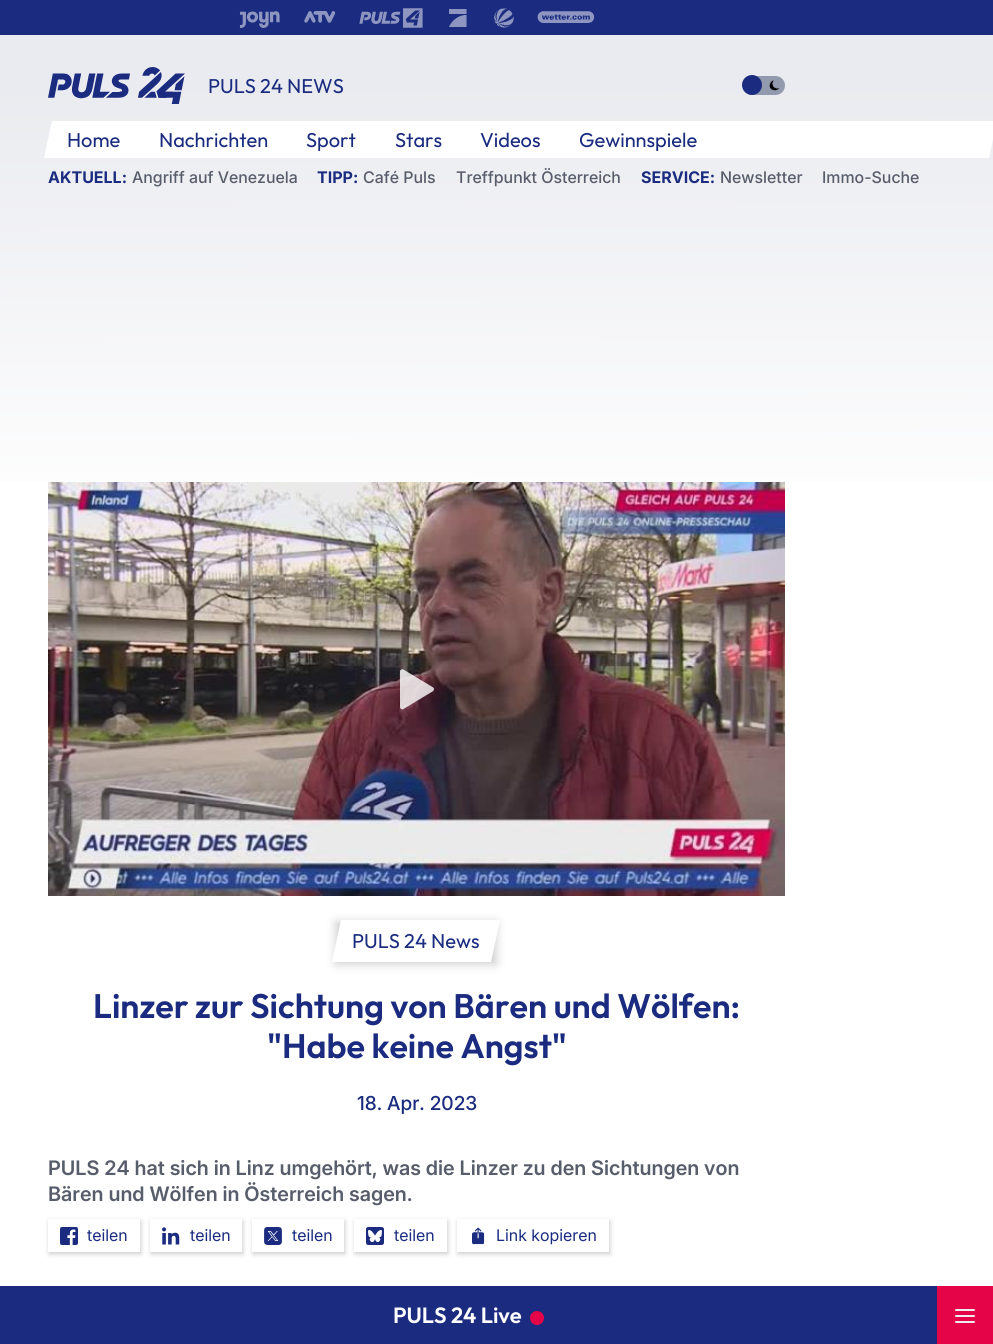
#include <cairo.h>
#include <math.h>
#include <stddef.h>

typedef struct { const char *family; double size; int italic, bold; unsigned color; } style_t;
static cairo_t *ctx;

static void ink(unsigned color) {
    cairo_set_source_rgb(ctx, (color >> 16) / 255.0, (color >> 8 & 255) / 255.0, (color & 255) / 255.0);
}

static void write(double x, double y, const char *s, const style_t *st) {
    cairo_select_font_face(ctx, st->family, st->italic ? CAIRO_FONT_SLANT_ITALIC : CAIRO_FONT_SLANT_NORMAL,
        st->bold ? CAIRO_FONT_WEIGHT_BOLD : CAIRO_FONT_WEIGHT_NORMAL);
    cairo_set_font_size(ctx, st->size);
    ink(st->color);
    cairo_move_to(ctx, x, y);
    cairo_show_text(ctx, s);
}

static void block(double x, double y, double w, double h, unsigned color) {
    ink(color);
    cairo_rectangle(ctx, x, y, w, h);
    cairo_fill(ctx);
}

static void round_path(double x, double y, double w, double h, double r) {
    cairo_new_sub_path(ctx);
    cairo_arc(ctx, x + w - r, y + h - r, r, 0, M_PI / 2);
    cairo_arc(ctx, x + r, y + h - r, r, M_PI / 2, M_PI);
    cairo_arc(ctx, x + r, y + r, r, M_PI, 1.5 * M_PI);
    cairo_arc(ctx, x + w - r, y + r, r, 1.5 * M_PI, 2 * M_PI);
    cairo_close_path(ctx);
}

static void blur_box(double x, double y, double w, double h, double r, double blur, double alpha) {
    cairo_push_group_with_content(ctx, CAIRO_CONTENT_ALPHA);
    cairo_set_operator(ctx, CAIRO_OPERATOR_SOURCE);
    for (int i = 15; i >= -15 && fmin(w, h) + blur * i / 3 > 0; i -= 2) {
        double e = blur * i / 6;
        cairo_set_source_rgba(ctx, 0, 0, 0, alpha * erfc((i - 1) / 8.5) / 2);
        round_path(x - e, y - e, w + 2 * e, h + 2 * e, fmax(0, fmin(r + e + blur * .6, fmin(w, h) / 2 + e)));
        cairo_fill(ctx);
    }
    cairo_pattern_t *soft = cairo_pop_group(ctx);
    cairo_mask(ctx, soft);
    cairo_pattern_destroy(soft);
}

static void paste(const char *path, double x, double y, double w, double h) {
    cairo_surface_t *image = cairo_image_surface_create_from_png(path);
    cairo_save(ctx);
    cairo_set_source_surface(ctx, image, x, y);
    cairo_rectangle(ctx, x, y, w, h);
    cairo_fill(ctx);
    cairo_restore(ctx);
    cairo_surface_destroy(image);
}

static const style_t s1 = {"Outfit", 20, 0, 0, 0x1a2b80};
static const style_t s2 = {"Inter", 16, 0, 1, 0x1a2b80};
static const style_t s3 = {"Inter Medium", 16, 0, 0, 0x585d6b};
static const style_t s4 = {"Outfit SemiBold", 22, 0, 0, 0xffffff};
static const style_t s5 = {"Outfit SemiBold", 34, 0, 0, 0x1a2b80};
static const style_t s6 = {"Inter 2 Medium", 19.25, 0, 0, 0x1a2b80};
static const style_t s7 = {"Inter SemiBold", 20, 0, 0, 0x585d6b};
static const style_t s8 = {"Inter", 16, 0, 0, 0x1a2b80};

int main(void) {
    cairo_surface_t *surface = cairo_image_surface_create(CAIRO_FORMAT_RGB24, 993, 1344);
    ctx = cairo_create(surface);
    cairo_font_options_t *options = cairo_font_options_create();
    cairo_font_options_set_hint_metrics(options, CAIRO_HINT_METRICS_OFF);
    cairo_font_options_set_hint_style(options, CAIRO_HINT_STYLE_NONE);
    cairo_set_font_options(ctx, options);
    cairo_set_miter_limit(ctx, 4);
    cairo_pattern_t *gradient;
    ink(0xffffff);
    cairo_paint(ctx);
    block(0, 0, 993, 35, 0x1a2b80);
    paste("pic1.png", 239, 11, 41, 17);
    paste("pic2.png", 304, 11, 32, 12);
    paste("pic3.png", 359, 8, 64, 20);
    paste("pic4.png", 449, 9, 18, 18);
    paste("pic5.png", 494, 8, 20, 20);
    paste("pic6.png", 537, 11, 58, 12);
    gradient = cairo_pattern_create_linear(496, 35, 497, 535);
    cairo_pattern_add_color_stop_rgba(gradient, 0.1, 0.918, 0.922, 0.941, 1);
    cairo_pattern_add_color_stop_rgba(gradient, 1, 1, 1, 1, 1);
    cairo_set_source(ctx, gradient);
    cairo_pattern_destroy(gradient);
    cairo_rectangle(ctx, 0, 35, 993, 447);
    cairo_fill(ctx);
    paste("pic7.png", 48, 67, 137, 37);
    write(208, 93, "PULS 24 NEWS", &s1);
    ink(0x929aae);
    round_path(743, 76, 42, 19, 9.5);
    cairo_fill(ctx);
    ink(0x1a2b80);
    cairo_arc(ctx, 752, 85, 10, 0, 2 * M_PI);
    cairo_fill(ctx);
    paste("pic8.png", 769, 80, 11, 11);
    ink(0xffffff);
    cairo_new_path(ctx);
    cairo_move_to(ctx, 52, 121);
    cairo_line_to(ctx, 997, 121);
    cairo_line_to(ctx, 989, 158);
    cairo_line_to(ctx, 44, 158);
    cairo_close_path(ctx);
    cairo_fill(ctx);
    write(67, 147, "Home", &s1);
    write(159, 147, "Nachrichten", &s1);
    write(306, 147, "Sport", &s1);
    write(395, 147, "Stars", &s1);
    write(480, 147, "Videos", &s1);
    write(579, 147, "Gewinnspiele", &s1);
    write(48, 183, "AKTUELL:", &s2);
    write(132, 183, "Angriff auf Venezuela", &s3);
    write(317, 183, "TIPP:", &s2);
    write(363, 183, "Café Puls", &s3);
    write(456, 183, "Treffpunkt Österreich", &s3);
    write(641, 183, "SERVICE:", &s2);
    write(720, 183, "Newsletter", &s3);
    write(822, 183, "Immo-Suche", &s3);
    block(0, 1286, 937, 58, 0x1a2b80);
    write(393, 1323, "PULS 24 Live", &s4);
    ink(0xe60449);
    cairo_new_path(ctx);
    cairo_arc(ctx, 537, 1318, 7, 0, 2 * M_PI);
    cairo_fill(ctx);
    block(937, 1286, 56, 58, 0xe60449);
    paste("pic9.png", 955, 1309, 20, 14);
    paste("pic10.png", 48, 482, 737, 414);
    paste("pic11.png", 400, 669, 34, 41);
    ink(0x000000);
    blur_box(336, 922, 160, 42, 0, 5, 0.2);
    ink(0xffffff);
    cairo_new_path(ctx);
    cairo_move_to(ctx, 341, 920);
    cairo_line_to(ctx, 500, 920);
    cairo_line_to(ctx, 491, 962);
    cairo_line_to(ctx, 332, 962);
    cairo_close_path(ctx);
    cairo_fill(ctx);
    write(352, 948, "PULS 24 News", &s1);
    write(93, 1018, "Linzer zur Sichtung von Bären und Wölfen:", &s5);
    write(267, 1058, "\"Habe keine Angst\"", &s5);
    write(357, 1110, "18. Apr. 2023", &s6);
    write(48, 1175, "PULS 24 hat sich in Linz umgehört, was die Linzer zu den Sichtungen von", &s7);
    write(48, 1201, "Bären und Wölfen in Österreich sagen.", &s7);
    cairo_save(ctx);
    cairo_set_fill_rule(ctx, CAIRO_FILL_RULE_EVEN_ODD);
    cairo_new_path(ctx);
    cairo_move_to(ctx, 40, 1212);
    cairo_line_to(ctx, 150, 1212);
    cairo_line_to(ctx, 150, 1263);
    cairo_line_to(ctx, 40, 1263);
    cairo_close_path(ctx);
    cairo_move_to(ctx, 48, 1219);
    cairo_line_to(ctx, 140, 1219);
    cairo_line_to(ctx, 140, 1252);
    cairo_line_to(ctx, 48, 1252);
    cairo_close_path(ctx);
    cairo_clip(ctx);
    ink(0x000000);
    blur_box(49, 1221, 92, 33, 0, 2.5, 0.2);
    cairo_restore(ctx);
    paste("pic12.png", 60, 1227, 18, 18);
    write(87, 1241, "teilen", &s8);
    cairo_save(ctx);
    cairo_set_fill_rule(ctx, CAIRO_FILL_RULE_EVEN_ODD);
    cairo_new_path(ctx);
    cairo_move_to(ctx, 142, 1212);
    cairo_line_to(ctx, 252, 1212);
    cairo_line_to(ctx, 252, 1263);
    cairo_line_to(ctx, 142, 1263);
    cairo_close_path(ctx);
    cairo_move_to(ctx, 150, 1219);
    cairo_line_to(ctx, 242, 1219);
    cairo_line_to(ctx, 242, 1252);
    cairo_line_to(ctx, 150, 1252);
    cairo_close_path(ctx);
    cairo_clip(ctx);
    ink(0x000000);
    blur_box(151, 1221, 92, 33, 0, 2.5, 0.2);
    cairo_restore(ctx);
    paste("pic13.png", 162, 1227, 18, 18);
    write(190, 1241, "teilen", &s8);
    cairo_save(ctx);
    cairo_set_fill_rule(ctx, CAIRO_FILL_RULE_EVEN_ODD);
    cairo_new_path(ctx);
    cairo_move_to(ctx, 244, 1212);
    cairo_line_to(ctx, 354, 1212);
    cairo_line_to(ctx, 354, 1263);
    cairo_line_to(ctx, 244, 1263);
    cairo_close_path(ctx);
    cairo_move_to(ctx, 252, 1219);
    cairo_line_to(ctx, 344, 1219);
    cairo_line_to(ctx, 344, 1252);
    cairo_line_to(ctx, 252, 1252);
    cairo_close_path(ctx);
    cairo_clip(ctx);
    ink(0x000000);
    blur_box(253, 1221, 92, 33, 0, 2.5, 0.2);
    cairo_restore(ctx);
    paste("pic14.png", 264, 1227, 18, 18);
    write(292, 1241, "teilen", &s8);
    cairo_save(ctx);
    cairo_set_fill_rule(ctx, CAIRO_FILL_RULE_EVEN_ODD);
    cairo_new_path(ctx);
    cairo_move_to(ctx, 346, 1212);
    cairo_line_to(ctx, 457, 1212);
    cairo_line_to(ctx, 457, 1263);
    cairo_line_to(ctx, 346, 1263);
    cairo_close_path(ctx);
    cairo_move_to(ctx, 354, 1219);
    cairo_line_to(ctx, 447, 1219);
    cairo_line_to(ctx, 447, 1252);
    cairo_line_to(ctx, 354, 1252);
    cairo_close_path(ctx);
    cairo_clip(ctx);
    ink(0x000000);
    blur_box(355, 1221, 93, 33, 0, 2.5, 0.2);
    cairo_restore(ctx);
    paste("pic15.png", 366, 1227, 18, 18);
    write(394, 1241, "teilen", &s8);
    cairo_save(ctx);
    cairo_set_fill_rule(ctx, CAIRO_FILL_RULE_EVEN_ODD);
    cairo_new_path(ctx);
    cairo_move_to(ctx, 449, 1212);
    cairo_line_to(ctx, 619, 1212);
    cairo_line_to(ctx, 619, 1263);
    cairo_line_to(ctx, 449, 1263);
    cairo_close_path(ctx);
    cairo_move_to(ctx, 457, 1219);
    cairo_line_to(ctx, 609, 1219);
    cairo_line_to(ctx, 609, 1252);
    cairo_line_to(ctx, 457, 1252);
    cairo_close_path(ctx);
    cairo_clip(ctx);
    ink(0x000000);
    blur_box(458, 1221, 152, 33, 0, 2.5, 0.2);
    cairo_restore(ctx);
    paste("pic16.png", 472, 1227, 13, 18);
    write(496, 1241, "Link kopieren", &s8);
    cairo_surface_write_to_png(surface, "screenshot.png");
    cairo_font_options_destroy(options);
    cairo_destroy(ctx);
    cairo_surface_destroy(surface);
    return 0;
}
